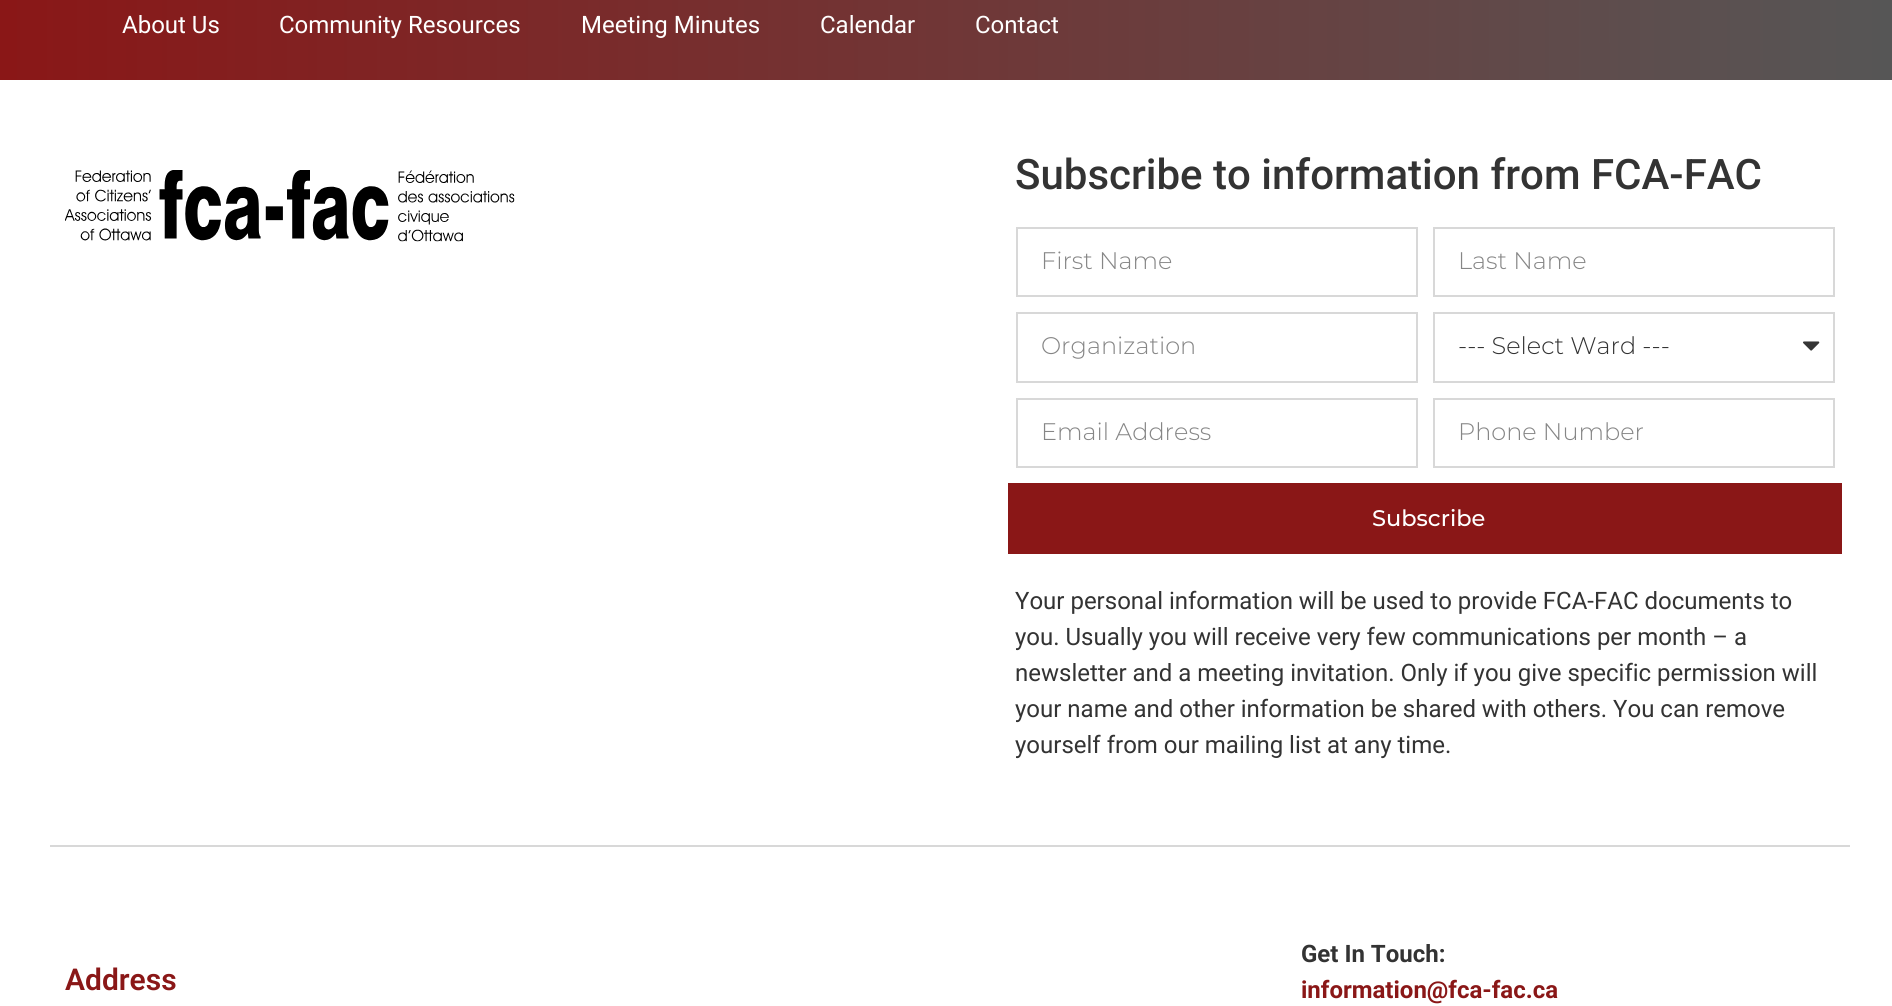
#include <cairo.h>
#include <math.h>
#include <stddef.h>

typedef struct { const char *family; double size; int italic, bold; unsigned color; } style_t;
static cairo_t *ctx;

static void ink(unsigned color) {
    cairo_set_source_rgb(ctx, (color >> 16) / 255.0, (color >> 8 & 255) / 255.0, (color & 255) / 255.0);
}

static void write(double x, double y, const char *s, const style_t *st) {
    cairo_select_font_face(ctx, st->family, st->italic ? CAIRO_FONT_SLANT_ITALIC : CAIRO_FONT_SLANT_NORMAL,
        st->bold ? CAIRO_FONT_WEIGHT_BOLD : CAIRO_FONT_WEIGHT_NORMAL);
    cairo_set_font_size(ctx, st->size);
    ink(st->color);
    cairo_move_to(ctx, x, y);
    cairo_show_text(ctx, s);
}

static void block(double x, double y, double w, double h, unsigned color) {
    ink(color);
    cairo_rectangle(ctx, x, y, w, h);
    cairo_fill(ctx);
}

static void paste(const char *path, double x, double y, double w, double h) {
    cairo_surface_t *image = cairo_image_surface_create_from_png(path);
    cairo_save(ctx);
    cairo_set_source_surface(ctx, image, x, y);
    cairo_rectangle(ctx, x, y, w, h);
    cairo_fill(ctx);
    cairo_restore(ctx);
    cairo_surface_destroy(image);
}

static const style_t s1 = {"Roboto", 24, 0, 0, 0xffffff};
static const style_t s2 = {"Roboto Medium", 42, 0, 0, 0x333333};
static const style_t s3 = {"Montserrat Light", 24, 0, 0, 0x868686};
static const style_t s4 = {"Montserrat Light", 24, 0, 0, 0x333333};
static const style_t s5 = {"Montserrat Medium", 22.5, 0, 0, 0xffffff};
static const style_t s6 = {"Roboto", 24, 0, 0, 0x333333};
static const style_t s7 = {"Roboto SemiBold", 30, 0, 0, 0x8a1717};
static const style_t s8 = {"Roboto", 24, 0, 1, 0x333333};
static const style_t s9 = {"Roboto", 24, 0, 1, 0x8a1717};

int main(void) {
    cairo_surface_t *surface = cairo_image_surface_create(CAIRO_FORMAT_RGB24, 1892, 1006);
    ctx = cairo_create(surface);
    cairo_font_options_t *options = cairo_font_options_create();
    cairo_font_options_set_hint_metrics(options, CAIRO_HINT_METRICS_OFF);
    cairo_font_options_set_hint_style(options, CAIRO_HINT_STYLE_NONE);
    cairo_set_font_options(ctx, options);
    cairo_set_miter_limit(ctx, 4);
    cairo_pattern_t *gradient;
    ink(0xffffff);
    cairo_paint(ctx);
    gradient = cairo_pattern_create_linear(0, 26, 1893, 25);
    cairo_pattern_add_color_stop_rgba(gradient, 0, 0.541, 0.09, 0.09, 1);
    cairo_pattern_add_color_stop_rgba(gradient, 1, 0.337, 0.337, 0.337, 1);
    cairo_set_source(ctx, gradient);
    cairo_pattern_destroy(gradient);
    cairo_rectangle(ctx, 0, 0, 1892, 80);
    cairo_fill(ctx);
    write(122, 33, "About Us", &s1);
    write(279, 33, "Community Resources", &s1);
    write(581, 33, "Meeting Minutes", &s1);
    write(820, 33, "Calendar", &s1);
    write(975, 33, "Contact", &s1);
    paste("pic1.png", 65, 170, 450, 72);
    write(1015, 189, "Subscribe to information from FCA-FAC", &s2);
    cairo_rectangle(ctx, 1017, 228, 400, 68);
    ink(0xd8d8d8);
    cairo_stroke(ctx);
    write(1041, 269, "First Name", &s3);
    cairo_rectangle(ctx, 1434, 228, 400, 68);
    ink(0xd8d8d8);
    cairo_stroke(ctx);
    write(1458, 269, "Last Name", &s3);
    cairo_rectangle(ctx, 1017, 313, 400, 69);
    ink(0xd8d8d8);
    cairo_stroke(ctx);
    write(1041, 354, "Organization", &s3);
    cairo_rectangle(ctx, 1434, 313, 400, 69);
    ink(0xd8d8d8);
    cairo_stroke(ctx);
    write(1458, 354, "--- Select Ward ---", &s4);
    paste("pic2.png", 1803, 341, 17, 10);
    cairo_rectangle(ctx, 1017, 399, 400, 68);
    ink(0xd8d8d8);
    cairo_stroke(ctx);
    write(1041, 440, "Email Address", &s3);
    cairo_rectangle(ctx, 1434, 399, 400, 68);
    ink(0xd8d8d8);
    cairo_stroke(ctx);
    write(1458, 440, "Phone Number", &s3);
    block(1008, 483, 834, 71, 0x8a1717);
    write(1372, 526, "Subscribe", &s5);
    write(1015, 609, "Your personal information will be used to provide FCA-FAC documents to", &s6);
    write(1015, 645, "you. Usually you will receive very few communications per month – a", &s6);
    write(1015, 681, "newsletter and a meeting invitation. Only if you give specific permission will", &s6);
    write(1015, 717, "your name and other information be shared with others. You can remove", &s6);
    write(1015, 753, "yourself from our mailing list at any time.", &s6);
    block(50, 845, 1800, 2, 0xd8d8d8);
    write(65, 990, "Address", &s7);
    write(1301, 962, "Get In Touch:", &s8);
    write(1301, 998, "information@fca-fac.ca", &s9);
    cairo_surface_write_to_png(surface, "screenshot.png");
    cairo_font_options_destroy(options);
    cairo_destroy(ctx);
    cairo_surface_destroy(surface);
    return 0;
}
